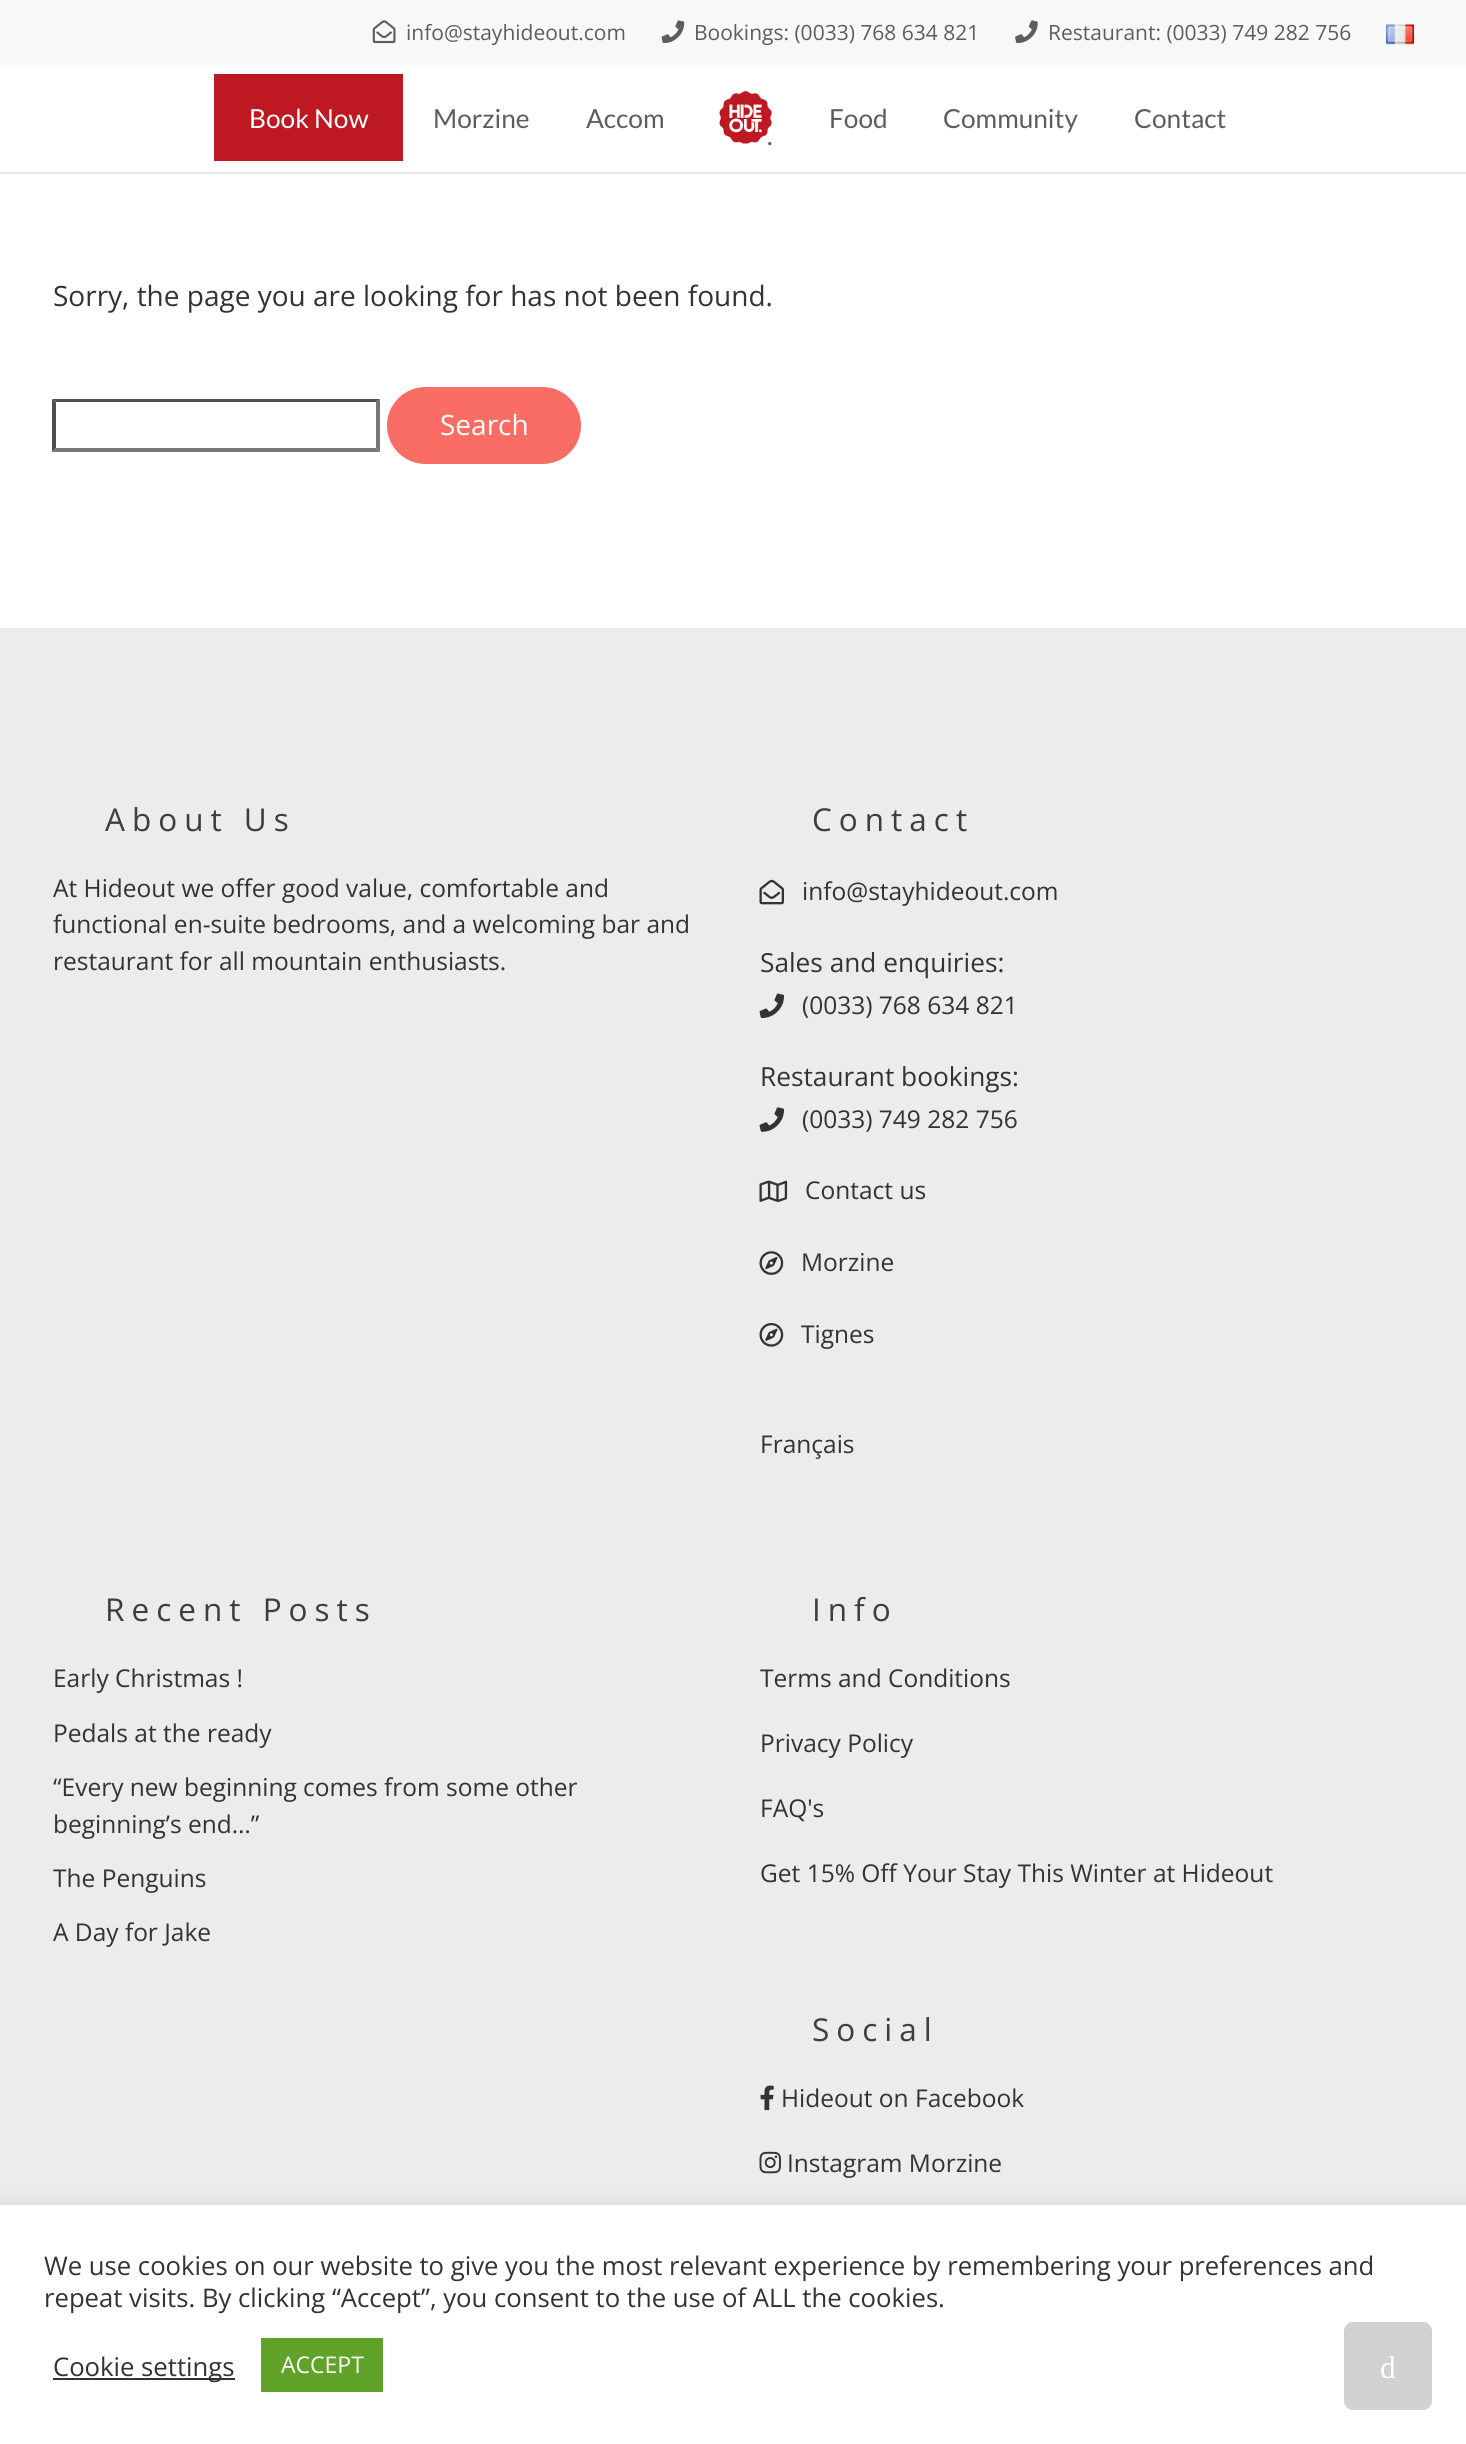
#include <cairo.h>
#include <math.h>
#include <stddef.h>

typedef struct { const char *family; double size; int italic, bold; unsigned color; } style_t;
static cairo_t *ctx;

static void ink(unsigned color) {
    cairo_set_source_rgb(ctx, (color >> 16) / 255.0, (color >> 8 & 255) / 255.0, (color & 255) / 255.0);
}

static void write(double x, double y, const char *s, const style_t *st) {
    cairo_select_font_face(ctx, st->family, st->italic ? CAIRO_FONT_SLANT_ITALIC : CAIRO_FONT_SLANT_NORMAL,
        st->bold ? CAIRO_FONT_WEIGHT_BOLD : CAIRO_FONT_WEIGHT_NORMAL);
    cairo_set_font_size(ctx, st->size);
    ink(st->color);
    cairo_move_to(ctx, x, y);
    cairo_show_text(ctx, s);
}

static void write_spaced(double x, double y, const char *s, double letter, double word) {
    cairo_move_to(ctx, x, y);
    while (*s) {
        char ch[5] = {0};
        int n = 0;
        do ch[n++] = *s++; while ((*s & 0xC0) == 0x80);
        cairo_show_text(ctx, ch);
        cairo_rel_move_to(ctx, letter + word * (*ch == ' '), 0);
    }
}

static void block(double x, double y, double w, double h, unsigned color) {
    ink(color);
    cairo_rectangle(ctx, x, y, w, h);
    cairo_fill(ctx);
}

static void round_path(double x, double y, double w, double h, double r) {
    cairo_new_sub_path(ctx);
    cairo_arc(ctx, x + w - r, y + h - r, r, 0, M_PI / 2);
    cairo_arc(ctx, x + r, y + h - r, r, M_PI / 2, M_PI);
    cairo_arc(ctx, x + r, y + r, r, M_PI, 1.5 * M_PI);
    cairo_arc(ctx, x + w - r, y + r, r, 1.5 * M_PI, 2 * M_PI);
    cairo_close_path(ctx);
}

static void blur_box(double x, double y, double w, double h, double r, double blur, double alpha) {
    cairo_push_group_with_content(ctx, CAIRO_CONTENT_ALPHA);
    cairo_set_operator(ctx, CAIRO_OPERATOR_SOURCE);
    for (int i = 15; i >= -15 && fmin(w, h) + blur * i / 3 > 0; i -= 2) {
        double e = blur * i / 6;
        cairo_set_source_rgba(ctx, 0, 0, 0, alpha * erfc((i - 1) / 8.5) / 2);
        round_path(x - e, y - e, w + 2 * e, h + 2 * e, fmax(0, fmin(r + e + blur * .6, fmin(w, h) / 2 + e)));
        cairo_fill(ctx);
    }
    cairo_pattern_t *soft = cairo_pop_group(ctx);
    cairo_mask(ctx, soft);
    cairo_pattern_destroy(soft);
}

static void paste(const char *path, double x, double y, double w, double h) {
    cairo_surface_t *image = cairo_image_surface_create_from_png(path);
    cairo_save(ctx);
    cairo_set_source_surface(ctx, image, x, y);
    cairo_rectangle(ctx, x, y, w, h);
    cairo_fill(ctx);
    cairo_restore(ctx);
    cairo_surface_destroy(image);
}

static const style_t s1 = {"Open Sans", 21, 0, 0, 0x5d5d5d};
static const style_t s2 = {"Lato", 26.25, 0, 0, 0xffffff};
static const style_t s3 = {"Lato", 26.25, 0, 0, 0x5d5d5d};
static const style_t s4 = {"Open Sans", 28, 0, 0, 0x333333};
static const style_t s5 = {"Open Sans", 28, 0, 0, 0xffffff};
static const style_t s6 = {"Open Sans", 24.5, 0, 0, 0x333333};
static const style_t s7 = {"Open Sans", 26.25, 0, 0, 0x333333};
static const style_t s8 = {"Open Sans", 25.67, 0, 0, 0x333333};
static const style_t s9 = {"Open Sans", 23, 0, 0, 0xffffff};
static const style_t s10 = {"Liberation Serif", 31.5, 0, 0, 0xffffff};

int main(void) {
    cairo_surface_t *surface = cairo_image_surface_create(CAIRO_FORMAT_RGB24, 1466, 2444);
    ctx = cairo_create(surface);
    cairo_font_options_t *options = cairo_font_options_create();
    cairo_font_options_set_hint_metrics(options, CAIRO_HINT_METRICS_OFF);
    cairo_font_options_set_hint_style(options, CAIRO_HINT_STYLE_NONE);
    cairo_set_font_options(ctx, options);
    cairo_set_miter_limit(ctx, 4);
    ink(0xffffff);
    cairo_paint(ctx);
    block(0, 172, 1466, 2, 0xe7e7e7);
    block(0, 0, 1466, 65, 0xf8f8f8);
    paste("pic1.png", 372, 20, 24, 24);
    write(406, 40, "info@stayhideout.com", &s1);
    paste("pic2.png", 661, 20, 24, 24);
    write(694, 40, "Bookings: (0033) 768 634 821", &s1);
    paste("pic3.png", 1015, 20, 23, 24);
    write(1048, 40, "Restaurant: (0033) 749 282 756", &s1);
    paste("pic4.png", 1386, 24, 28, 21);
    block(214, 74, 189, 87, 0xbe1822);
    write(249, 128, "Book Now", &s2);
    write(433, 128, "Morzine", &s3);
    write(586, 128, "Accom", &s3);
    write(829, 128, "Food", &s3);
    write(943, 128, "Community", &s3);
    write(1134, 128, "Contact", &s3);
    paste("pic5.png", 719, 91, 53, 53);
    write(767, 145, ".", &s3);
    write(53, 306, "Sorry, the page you are looking for has not been found.", &s4);
    ink(0x4f4f4f);
    cairo_new_path(ctx);
    cairo_move_to(ctx, 52, 399);
    cairo_line_to(ctx, 380, 399);
    cairo_line_to(ctx, 376, 402);
    cairo_line_to(ctx, 56, 402);
    cairo_close_path(ctx);
    cairo_fill(ctx);
    ink(0x767676);
    cairo_new_path(ctx);
    cairo_move_to(ctx, 380, 399);
    cairo_line_to(ctx, 380, 452);
    cairo_line_to(ctx, 376, 448);
    cairo_line_to(ctx, 376, 402);
    cairo_close_path(ctx);
    cairo_fill(ctx);
    cairo_new_path(ctx);
    cairo_move_to(ctx, 380, 452);
    cairo_line_to(ctx, 52, 452);
    cairo_line_to(ctx, 56, 448);
    cairo_line_to(ctx, 376, 448);
    cairo_close_path(ctx);
    cairo_fill(ctx);
    ink(0x4f4f4f);
    cairo_new_path(ctx);
    cairo_move_to(ctx, 52, 452);
    cairo_line_to(ctx, 52, 399);
    cairo_line_to(ctx, 56, 402);
    cairo_line_to(ctx, 56, 448);
    cairo_close_path(ctx);
    cairo_fill(ctx);
    ink(0xf96d64);
    round_path(387, 387, 194, 77, 38.5);
    cairo_fill(ctx);
    write(440, 435, "Search", &s5);
    block(0, 628, 1466, 1577, 0xebeced);
    cairo_set_font_size(ctx, 31.5);
    ink(0x3e3e3e);
    write_spaced(105, 831, "About Us", 7, 0);
    write(53, 897, "At Hideout we offer good value, comfortable and", &s6);
    write(53, 933, "functional en-suite bedrooms, and a welcoming bar and", &s6);
    write(53, 970, "restaurant for all mountain enthusiasts.", &s6);
    cairo_set_font_size(ctx, 31.5);
    ink(0x3e3e3e);
    write_spaced(812, 831, "Contact", 7, 0);
    paste("pic6.png", 759, 879, 25, 26);
    write(802, 900, "info@stayhideout.com", &s6);
    write(760, 972, "Sales and enquiries:", &s7);
    paste("pic7.png", 759, 993, 25, 26);
    write(802, 1014, "(0033) 768 634 821", &s6);
    write(760, 1086, "Restaurant bookings:", &s7);
    paste("pic8.png", 759, 1107, 25, 25);
    write(802, 1128, "(0033) 749 282 756", &s6);
    paste("pic9.png", 759, 1180, 29, 22);
    write(805, 1199, "Contact us", &s6);
    paste("pic10.png", 759, 1251, 25, 24);
    write(801, 1271, "Morzine", &s6);
    paste("pic11.png", 759, 1322, 25, 25);
    write(801, 1343, "Tignes", &s6);
    write(760, 1453, "Français", &s6);
    cairo_set_font_size(ctx, 31.5);
    ink(0x3e3e3e);
    write_spaced(105, 1621, "Recent Posts", 7, 0);
    write(53, 1687, "Early Christmas !", &s6);
    write(53, 1742, "Pedals at the ready", &s6);
    write(53, 1796, "“Every new beginning comes from some other", &s6);
    write(53, 1833, "beginning’s end…”", &s6);
    write(53, 1887, "The Penguins", &s6);
    write(53, 1941, "A Day for Jake", &s6);
    cairo_set_font_size(ctx, 31.5);
    ink(0x3e3e3e);
    write_spaced(812, 1621, "Info", 7, 0);
    write(760, 1687, "Terms and Conditions", &s6);
    write(760, 1752, "Privacy Policy", &s6);
    write(760, 1817, "FAQ's", &s6);
    write(760, 1882, "Get 15% Off Your Stay This Winter at Hideout", &s6);
    cairo_set_font_size(ctx, 31.5);
    ink(0x3e3e3e);
    write_spaced(812, 2041, "Social", 7, 0);
    paste("pic12.png", 760, 2085, 14, 26);
    write(781, 2107, "Hideout on Facebook", &s6);
    paste("pic13.png", 759, 2151, 22, 23);
    write(787, 2172, "Instagram Morzine", &s6);
    ink(0xacabab);
    blur_box(0, 2203, 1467, 240, 0, 9, 0.3);
    block(0, 2205, 1466, 239, 0xffffff);
    write(44, 2275, "We use cookies on our website to give you the most relevant experience by remembering your preferences and", &s8);
    write(44, 2307, "repeat visits. By clicking “Accept”, you consent to the use of ALL the cookies.", &s8);
    block(53, 2378, 182, 2, 0x333333);
    write(53, 2376, "Cookie settings", &s8);
    block(261, 2338, 122, 54, 0x61a229);
    write(281, 2373, "ACCEPT", &s9);
    ink(0xd1d1d1);
    round_path(1344, 2322, 88, 88, 9);
    cairo_fill(ctx);
    write(1380, 2378, "d", &s10);
    cairo_surface_write_to_png(surface, "screenshot.png");
    cairo_font_options_destroy(options);
    cairo_destroy(ctx);
    cairo_surface_destroy(surface);
    return 0;
}
